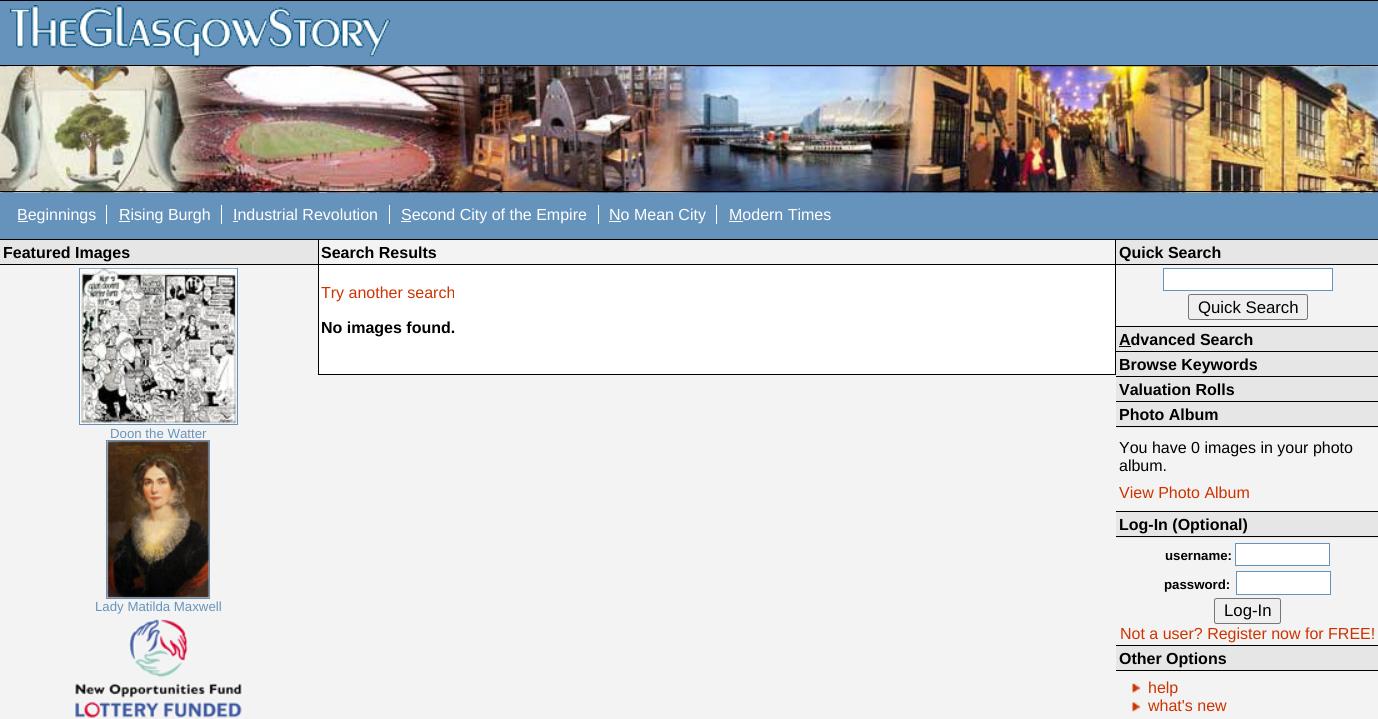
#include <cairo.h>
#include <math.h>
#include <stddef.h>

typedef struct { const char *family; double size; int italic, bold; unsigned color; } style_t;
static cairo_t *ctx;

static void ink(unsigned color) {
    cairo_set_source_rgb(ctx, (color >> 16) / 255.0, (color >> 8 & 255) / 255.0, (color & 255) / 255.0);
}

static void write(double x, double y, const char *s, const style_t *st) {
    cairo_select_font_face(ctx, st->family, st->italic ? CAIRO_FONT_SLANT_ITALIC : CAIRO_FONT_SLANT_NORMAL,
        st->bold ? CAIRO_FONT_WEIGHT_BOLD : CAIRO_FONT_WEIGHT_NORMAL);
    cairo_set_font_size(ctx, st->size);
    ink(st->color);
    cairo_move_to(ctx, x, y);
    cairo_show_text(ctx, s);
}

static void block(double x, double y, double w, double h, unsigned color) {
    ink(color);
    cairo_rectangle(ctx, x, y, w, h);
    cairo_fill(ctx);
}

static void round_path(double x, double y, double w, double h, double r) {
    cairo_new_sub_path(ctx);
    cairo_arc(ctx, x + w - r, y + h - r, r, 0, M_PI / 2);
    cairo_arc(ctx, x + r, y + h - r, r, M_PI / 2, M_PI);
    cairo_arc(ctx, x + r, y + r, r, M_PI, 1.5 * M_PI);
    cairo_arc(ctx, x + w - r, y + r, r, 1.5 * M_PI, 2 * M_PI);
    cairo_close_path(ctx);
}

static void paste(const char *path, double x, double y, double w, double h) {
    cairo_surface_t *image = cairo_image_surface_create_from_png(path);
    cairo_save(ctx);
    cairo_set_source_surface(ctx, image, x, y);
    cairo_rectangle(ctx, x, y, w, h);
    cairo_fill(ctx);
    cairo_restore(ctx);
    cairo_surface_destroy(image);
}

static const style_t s1 = {"Liberation Sans", 16, 0, 0, 0xffffff};
static const style_t s2 = {"Liberation Sans", 16, 0, 1, 0x000000};
static const style_t s3 = {"Liberation Sans", 13.25, 0, 0, 0x6693bc};
static const style_t s4 = {"Liberation Sans", 16, 0, 0, 0xcc3300};
static const style_t s5 = {"Liberation Sans", 16.75, 0, 0, 0x000000};
static const style_t s6 = {"Liberation Sans", 16, 0, 0, 0x000000};
static const style_t s7 = {"Liberation Sans", 13.25, 0, 1, 0x000000};

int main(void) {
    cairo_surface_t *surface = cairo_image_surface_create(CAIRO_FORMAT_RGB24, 1378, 719);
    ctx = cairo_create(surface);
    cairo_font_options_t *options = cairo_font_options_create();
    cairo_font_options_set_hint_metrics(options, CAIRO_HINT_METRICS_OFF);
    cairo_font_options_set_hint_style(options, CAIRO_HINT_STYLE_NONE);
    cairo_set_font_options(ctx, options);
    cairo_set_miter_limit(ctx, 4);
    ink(0xf3f3f3);
    cairo_paint(ctx);
    block(0, 1, 1378, 64, 0x6693bc);
    block(0, 0, 1378, 1, 0x000000);
    paste("pic1.png", 9, 5, 382, 53);
    block(0, 192, 1378, 47, 0x6693bc);
    paste("pic2.png", 0, 66, 1378, 127);
    block(0, 65, 1378, 1, 0x000000);
    block(0, 191, 1378, 1, 0x000000);
    block(0, 239, 1378, 1, 0x000000);
    block(18, 221, 10, 1, 0xffffff);
    write(17, 220, "Beginnings", &s1);
    block(119, 221, 11, 1, 0xffffff);
    write(119, 220, "Rising Burgh", &s1);
    block(106, 205, 1, 19, 0xffffff);
    write(233, 220, "Industrial Revolution", &s1);
    block(221, 205, 1, 19, 0xffffff);
    block(233, 221, 5, 1, 0xffffff);
    block(401, 221, 10, 1, 0xffffff);
    write(401, 220, "Second City of the Empire", &s1);
    block(389, 205, 1, 19, 0xffffff);
    block(609, 221, 12, 1, 0xffffff);
    write(609, 220, "No Mean City", &s1);
    block(598, 205, 1, 19, 0xffffff);
    write(729, 220, "Modern Times", &s1);
    block(716, 205, 1, 19, 0xffffff);
    block(729, 221, 14, 1, 0xffffff);
    block(0, 240, 318, 24, 0xe6e6e6);
    block(0, 264, 318, 1, 0x000000);
    write(3, 258, "Featured Images", &s2);
    cairo_rectangle(ctx, 79.5, 268.5, 158, 156);
    ink(0x6693bc);
    cairo_set_line_width(ctx, 1);
    cairo_stroke(ctx);
    paste("pic3.png", 80, 268, 157, 156);
    write(110, 438, "Doon the Watter", &s3);
    cairo_rectangle(ctx, 106.5, 440.5, 103, 158);
    cairo_stroke(ctx);
    paste("pic4.png", 107, 441, 102, 157);
    write(95, 611, "Lady Matilda Maxwell", &s3);
    paste("pic5.png", 74, 619, 169, 100);
    block(319, 265, 796, 109, 0xffffff);
    block(1115, 240, 1, 135, 0x000000);
    block(318, 374, 798, 1, 0x000000);
    block(318, 240, 1, 135, 0x000000);
    block(319, 264, 796, 1, 0x000000);
    write(321, 258, "Search Results", &s2);
    write(321, 298, "Try another search", &s4);
    write(321, 333, "No images found.", &s2);
    block(1116, 240, 262, 24, 0xe6e6e6);
    block(1116, 264, 262, 1, 0x000000);
    write(1119, 258, "Quick Search", &s2);
    ink(0xffffff);
    cairo_rectangle(ctx, 1163.5, 268.5, 169, 22);
    cairo_fill_preserve(ctx);
    ink(0x6693bc);
    cairo_stroke(ctx);
    ink(0xefefef);
    round_path(1188.5, 294.5, 119, 25, 2);
    cairo_fill_preserve(ctx);
    ink(0x767676);
    cairo_stroke(ctx);
    write(1198, 313, "Quick Search", &s5);
    block(1116, 327, 262, 24, 0xe6e6e6);
    block(1116, 326, 262, 1, 0x000000);
    write(1119, 345, "Advanced Search", &s2);
    block(1119, 346, 12, 1, 0x000000);
    block(1116, 352, 262, 24, 0xe6e6e6);
    block(1116, 351, 262, 1, 0x000000);
    write(1119, 370, "Browse Keywords", &s2);
    block(1116, 377, 262, 24, 0xe6e6e6);
    block(1116, 376, 262, 1, 0x000000);
    write(1119, 395, "Valuation Rolls", &s2);
    block(1116, 402, 262, 26, 0xe6e6e6);
    block(1116, 401, 262, 1, 0x000000);
    block(1116, 426, 262, 1, 0x000000);
    write(1119, 420, "Photo Album", &s2);
    write(1119, 453, "You have 0 images in your photo", &s6);
    write(1119, 471, "album.", &s6);
    write(1119, 498, "View Photo Album", &s4);
    block(1116, 512, 262, 26, 0xe6e6e6);
    block(1116, 511, 262, 1, 0x000000);
    block(1116, 536, 262, 1, 0x000000);
    write(1119, 530, "Log-In (Optional)", &s2);
    write(1165, 560, "username:", &s7);
    ink(0xffffff);
    cairo_rectangle(ctx, 1235.5, 543.5, 94, 22);
    cairo_fill_preserve(ctx);
    ink(0x6693bc);
    cairo_stroke(ctx);
    write(1164, 589, "password:", &s7);
    ink(0xffffff);
    cairo_rectangle(ctx, 1236.5, 571.5, 94, 23);
    cairo_fill_preserve(ctx);
    ink(0x6693bc);
    cairo_stroke(ctx);
    ink(0xefefef);
    round_path(1214.5, 598.5, 66, 25, 2);
    cairo_fill_preserve(ctx);
    ink(0x767676);
    cairo_stroke(ctx);
    write(1224, 616, "Log-In", &s5);
    write(1120, 639, "Not a user? Register now for FREE!", &s4);
    block(1116, 646, 262, 24, 0xe6e6e6);
    block(1116, 645, 262, 1, 0x000000);
    block(1116, 670, 262, 1, 0x000000);
    write(1119, 664, "Other Options", &s2);
    paste("pic6.png", 1132, 683, 9, 10);
    write(1148, 693, "help", &s4);
    paste("pic7.png", 1132, 702, 9, 10);
    write(1148, 711, "what's new", &s4);
    cairo_surface_write_to_png(surface, "screenshot.png");
    cairo_font_options_destroy(options);
    cairo_destroy(ctx);
    cairo_surface_destroy(surface);
    return 0;
}
